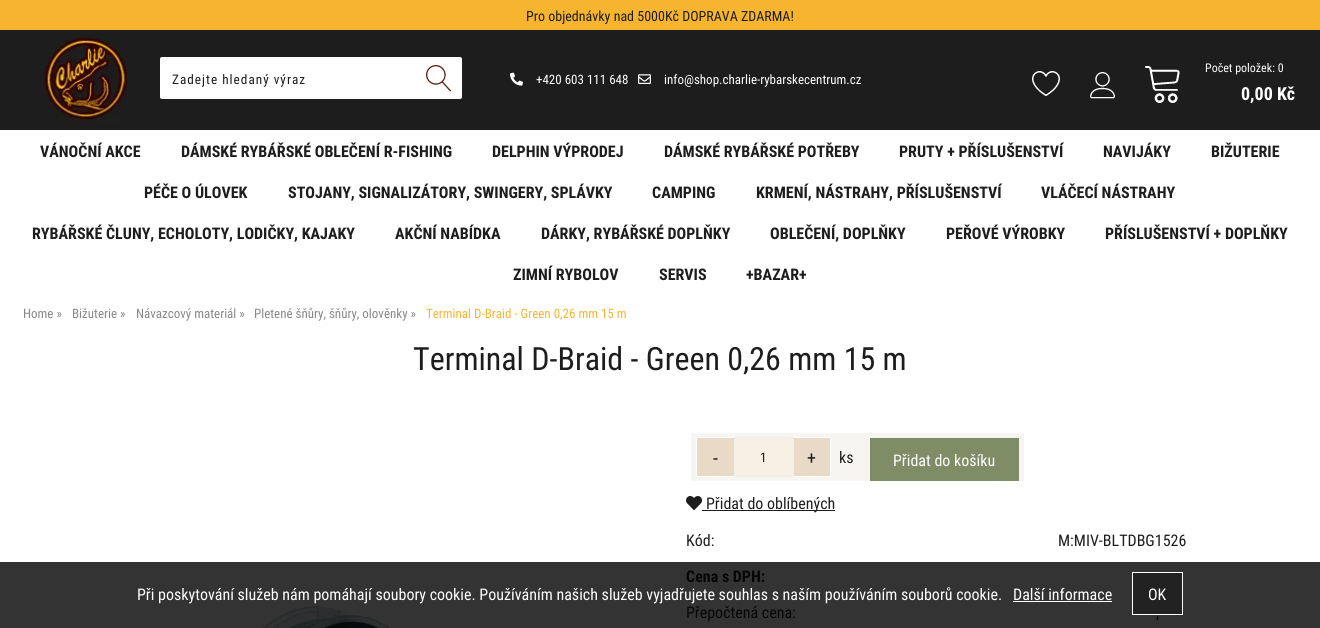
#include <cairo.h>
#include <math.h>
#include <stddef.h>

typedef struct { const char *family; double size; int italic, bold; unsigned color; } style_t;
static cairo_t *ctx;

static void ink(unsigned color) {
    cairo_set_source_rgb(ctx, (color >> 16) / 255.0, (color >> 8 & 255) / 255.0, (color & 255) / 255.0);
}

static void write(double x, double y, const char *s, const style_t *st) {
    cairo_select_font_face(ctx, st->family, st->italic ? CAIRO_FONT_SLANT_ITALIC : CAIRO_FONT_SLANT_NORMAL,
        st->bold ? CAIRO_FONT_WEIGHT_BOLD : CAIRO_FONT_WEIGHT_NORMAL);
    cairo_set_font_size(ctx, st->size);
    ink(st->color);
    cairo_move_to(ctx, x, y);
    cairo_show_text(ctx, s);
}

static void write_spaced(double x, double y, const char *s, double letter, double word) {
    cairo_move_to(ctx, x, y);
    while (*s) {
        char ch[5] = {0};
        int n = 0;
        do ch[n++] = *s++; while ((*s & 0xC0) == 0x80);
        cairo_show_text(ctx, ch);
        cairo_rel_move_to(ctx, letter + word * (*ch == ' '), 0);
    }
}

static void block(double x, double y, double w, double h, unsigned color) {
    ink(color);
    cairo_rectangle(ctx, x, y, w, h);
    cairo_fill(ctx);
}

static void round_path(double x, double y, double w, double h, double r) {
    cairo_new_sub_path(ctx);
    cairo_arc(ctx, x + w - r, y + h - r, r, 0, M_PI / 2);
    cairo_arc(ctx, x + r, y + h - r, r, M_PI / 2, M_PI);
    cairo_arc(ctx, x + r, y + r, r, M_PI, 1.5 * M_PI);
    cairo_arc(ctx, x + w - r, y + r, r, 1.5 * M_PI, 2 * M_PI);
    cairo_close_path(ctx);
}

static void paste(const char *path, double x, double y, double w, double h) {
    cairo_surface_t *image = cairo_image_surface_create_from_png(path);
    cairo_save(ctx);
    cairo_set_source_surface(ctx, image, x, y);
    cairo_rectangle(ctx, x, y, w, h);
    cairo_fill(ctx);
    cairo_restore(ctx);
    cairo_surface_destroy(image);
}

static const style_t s1 = {"Roboto Condensed", 14, 0, 0, 0x1d1d1d};
static const style_t s2 = {"Roboto Condensed", 13, 0, 0, 0xffffff};
static const style_t s3 = {"Roboto Condensed", 12, 0, 0, 0xffffff};
static const style_t s4 = {"Roboto Condensed", 18, 0, 1, 0xffffff};
static const style_t s5 = {"Roboto Condensed", 16, 0, 1, 0x1d1d1d};
static const style_t s6 = {"Roboto Condensed", 13, 0, 0, 0x888888};
static const style_t s7 = {"Roboto Condensed", 13, 0, 0, 0xf7b42f};
static const style_t s8 = {"Roboto Condensed", 32, 0, 0, 0x1d1d1d};
static const style_t s9 = {"Roboto Condensed", 20, 0, 0, 0x1d1d1d};
static const style_t s10 = {"Roboto Condensed", 18, 0, 0, 0x1d1d1d};
static const style_t s11 = {"Roboto Condensed", 16, 0, 0, 0x1d1d1d};
static const style_t s12 = {"Roboto Condensed", 16, 0, 0, 0xffffff};
static const style_t s13 = {"Roboto Condensed", 16, 0, 1, 0x060606};
static const style_t s14 = {"Roboto Condensed", 16, 0, 0, 0x060606};

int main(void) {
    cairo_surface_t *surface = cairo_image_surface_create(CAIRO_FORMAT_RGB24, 1320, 628);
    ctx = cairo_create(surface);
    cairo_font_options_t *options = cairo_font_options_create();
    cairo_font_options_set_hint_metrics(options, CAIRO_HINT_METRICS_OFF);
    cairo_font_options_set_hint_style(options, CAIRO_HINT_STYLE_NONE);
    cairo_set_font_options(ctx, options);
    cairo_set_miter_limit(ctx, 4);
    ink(0xffffff);
    cairo_paint(ctx);
    block(0, 562, 1320, 66, 0x333333);
    block(0, 0, 1320, 30, 0xf7b42f);
    write(526, 21, "Pro objednávky nad 5000Kč DOPRAVA ZDARMA!", &s1);
    block(0, 30, 1320, 100, 0x1d1d1d);
    paste("pic1.png", 41, 37, 87, 87);
    ink(0xffffff);
    round_path(160.5, 57.5, 301, 41, 1.5);
    cairo_fill_preserve(ctx);
    cairo_set_line_width(ctx, 1);
    cairo_stroke(ctx);
    cairo_set_font_size(ctx, 13.25);
    ink(0x1d1d1d);
    write_spaced(172, 84, "Zadejte hledaný výraz", 1, 0);
    paste("pic2.png", 426, 65, 25, 27);
    paste("pic3.png", 510, 72, 13, 14);
    write(536, 84, "+420 603 111 648", &s2);
    paste("pic4.png", 638, 74, 13, 10);
    write(664, 84, "info@shop.charlie-rybarskecentrum.cz", &s2);
    paste("pic5.png", 1032, 71, 28, 25);
    paste("pic6.png", 1090, 72, 25, 27);
    write(1205, 72, "Počet položek: 0", &s3);
    paste("pic7.png", 1145, 66, 35, 37);
    write(1241, 100, "0,00 Kč", &s4);
    write(40, 157, "VÁNOČNÍ AKCE", &s5);
    write(181, 157, "DÁMSKÉ RYBÁŘSKÉ OBLEČENÍ R-FISHING", &s5);
    write(492, 157, "DELPHIN VÝPRODEJ", &s5);
    write(664, 157, "DÁMSKÉ RYBÁŘSKÉ POTŘEBY", &s5);
    write(899, 157, "PRUTY + PŘÍSLUŠENSTVÍ", &s5);
    write(1103, 157, "NAVIJÁKY", &s5);
    write(1211, 157, "BIŽUTERIE", &s5);
    write(144, 198, "PÉČE O ÚLOVEK", &s5);
    write(288, 198, "STOJANY, SIGNALIZÁTORY, SWINGERY, SPLÁVKY", &s5);
    write(652, 198, "CAMPING", &s5);
    write(756, 198, "KRMENÍ, NÁSTRAHY, PŘÍSLUŠENSTVÍ", &s5);
    write(1041, 198, "VLÁČECÍ NÁSTRAHY", &s5);
    write(32, 239, "RYBÁŘSKÉ ČLUNY, ECHOLOTY, LODIČKY, KAJAKY", &s5);
    write(395, 239, "AKČNÍ NABÍDKA", &s5);
    write(541, 239, "DÁRKY, RYBÁŘSKÉ DOPLŇKY", &s5);
    write(770, 239, "OBLEČENÍ, DOPLŇKY", &s5);
    write(946, 239, "PEŘOVÉ VÝROBKY", &s5);
    write(1105, 239, "PŘÍSLUŠENSTVÍ + DOPLŇKY", &s5);
    write(513, 280, "ZIMNÍ RYBOLOV", &s5);
    write(659, 280, "SERVIS", &s5);
    write(746, 280, "+BAZAR+", &s5);
    write(23, 318, "Home »", &s6);
    write(72, 318, "Bižuterie »", &s6);
    write(136, 318, "Návazcový materiál »", &s6);
    write(254, 318, "Pletené šňůry, šňůry, olověnky »", &s6);
    write(426, 318, "Terminal D-Braid - Green 0,26 mm 15 m", &s7);
    write(413, 370, "Terminal D-Braid - Green 0,26 mm 15 m", &s8);
    paste("pic8.png", 263, 606, 127, 22);
    block(691, 433, 333, 48, 0xf6f5f1);
    block(697, 438, 37, 38, 0xe8dac7);
    block(696, 437, 38, 1, 0xffffff);
    block(696, 476, 38, 1, 0xffffff);
    block(696, 437, 1, 40, 0xffffff);
    write(713, 465, "-", &s9);
    block(735, 438, 59, 38, 0xf7efe3);
    block(734, 437, 60, 1, 0xeeeeee);
    block(734, 476, 60, 1, 0xeeeeee);
    block(734, 437, 1, 40, 0xeeeeee);
    cairo_set_font_size(ctx, 13.25);
    ink(0x1d1d1d);
    write_spaced(760, 462, "1", 1, 0);
    block(794, 438, 36, 38, 0xe8dac7);
    block(794, 437, 37, 1, 0xffffff);
    block(830, 437, 1, 40, 0xffffff);
    block(794, 476, 37, 1, 0xffffff);
    write(807, 464, "+", &s10);
    write(839, 463, "ks", &s11);
    block(870, 438, 149, 43, 0x7e8d66);
    write(893, 466, "Přidat do košíku", &s12);
    paste("pic9.png", 686, 496, 16, 14);
    block(702, 510, 133, 1, 0x1d1d1d);
    write(706, 509, "Přidat do oblíbených", &s11);
    write(686, 546, "Kód:", &s11);
    write(1058, 546, "M:MIV-BLTDBG1526", &s11);
    write(686, 582, "Cena s DPH:", &s13);
    write(686, 618, "Přepočtená cena:", &s14);
    write(1156, 618, ",", &s14);
    write(137, 600, "Při poskytování služeb nám pomáhají soubory cookie. Používáním našich služeb vyjadřujete souhlas s naším používáním souborů cookie.", &s12);
    write(1013, 600, "Další informace", &s12);
    block(1013, 601, 99, 1, 0xffffff);
    ink(0x222222);
    cairo_rectangle(ctx, 1132.5, 572.5, 50, 42);
    cairo_fill_preserve(ctx);
    ink(0xffffff);
    cairo_stroke(ctx);
    write(1148, 600, "OK", &s12);
    cairo_surface_write_to_png(surface, "screenshot.png");
    cairo_font_options_destroy(options);
    cairo_destroy(ctx);
    cairo_surface_destroy(surface);
    return 0;
}
